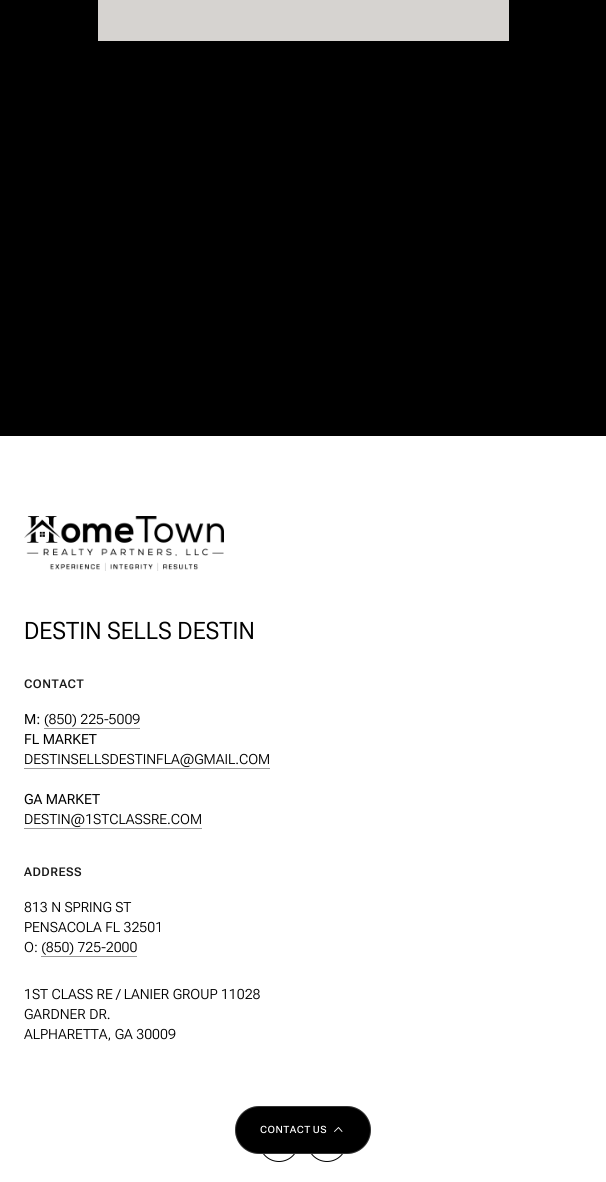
#include <cairo.h>
#include <math.h>
#include <stddef.h>

typedef struct { const char *family; double size; int italic, bold; unsigned color; } style_t;
static cairo_t *ctx;

static void ink(unsigned color) {
    cairo_set_source_rgb(ctx, (color >> 16) / 255.0, (color >> 8 & 255) / 255.0, (color & 255) / 255.0);
}

static void write(double x, double y, const char *s, const style_t *st) {
    cairo_select_font_face(ctx, st->family, st->italic ? CAIRO_FONT_SLANT_ITALIC : CAIRO_FONT_SLANT_NORMAL,
        st->bold ? CAIRO_FONT_WEIGHT_BOLD : CAIRO_FONT_WEIGHT_NORMAL);
    cairo_set_font_size(ctx, st->size);
    ink(st->color);
    cairo_move_to(ctx, x, y);
    cairo_show_text(ctx, s);
}

static void write_spaced(double x, double y, const char *s, double letter, double word) {
    cairo_move_to(ctx, x, y);
    while (*s) {
        char ch[5] = {0};
        int n = 0;
        do ch[n++] = *s++; while ((*s & 0xC0) == 0x80);
        cairo_show_text(ctx, ch);
        cairo_rel_move_to(ctx, letter + word * (*ch == ' '), 0);
    }
}

static void block(double x, double y, double w, double h, unsigned color) {
    ink(color);
    cairo_rectangle(ctx, x, y, w, h);
    cairo_fill(ctx);
}

static void round_path(double x, double y, double w, double h, double r) {
    cairo_new_sub_path(ctx);
    cairo_arc(ctx, x + w - r, y + h - r, r, 0, M_PI / 2);
    cairo_arc(ctx, x + r, y + h - r, r, M_PI / 2, M_PI);
    cairo_arc(ctx, x + r, y + r, r, M_PI, 1.5 * M_PI);
    cairo_arc(ctx, x + w - r, y + r, r, 1.5 * M_PI, 2 * M_PI);
    cairo_close_path(ctx);
}

static void paste(const char *path, double x, double y, double w, double h) {
    cairo_surface_t *image = cairo_image_surface_create_from_png(path);
    cairo_save(ctx);
    cairo_set_source_surface(ctx, image, x, y);
    cairo_rectangle(ctx, x, y, w, h);
    cairo_fill(ctx);
    cairo_restore(ctx);
    cairo_surface_destroy(image);
}

static const style_t s1 = {"Roboto Flex", 24, 0, 0, 0x000000};
static const style_t s2 = {"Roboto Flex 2", 14, 0, 0, 0x000000};
static const style_t s3 = {"Roboto Flex Light", 14, 0, 0, 0x000000};

int main(void) {
    cairo_surface_t *surface = cairo_image_surface_create(CAIRO_FORMAT_RGB24, 606, 1182);
    ctx = cairo_create(surface);
    cairo_font_options_t *options = cairo_font_options_create();
    cairo_font_options_set_hint_metrics(options, CAIRO_HINT_METRICS_OFF);
    cairo_font_options_set_hint_style(options, CAIRO_HINT_STYLE_NONE);
    cairo_set_font_options(ctx, options);
    cairo_set_miter_limit(ctx, 4);
    ink(0xffffff);
    cairo_paint(ctx);
    block(0, 0, 606, 436, 0x000000);
    block(98, 0, 411, 41, 0xd6d3d0);
    paste("pic1.png", 24, 516, 200, 55);
    write(24, 639, "DESTIN SELLS DESTIN", &s1);
    cairo_select_font_face(ctx, "Roboto Flex SemiBold", CAIRO_FONT_SLANT_NORMAL, CAIRO_FONT_WEIGHT_NORMAL);
    cairo_set_font_size(ctx, 12);
    ink(0x1a1a1a);
    write_spaced(24, 688, "CONTACT", 0.5, 0);
    write(24, 724, "M:", &s2);
    write(44, 724, "(850) 225-5009", &s3);
    block(44, 728, 96, 1, 0x999999);
    write(24, 744, "FL MARKET", &s2);
    write(24, 764, "DESTINSELLSDESTINFLA@GMAIL.COM", &s3);
    block(24, 768, 246, 1, 0x999999);
    write(24, 804, "GA MARKET", &s2);
    write(24, 824, "DESTIN@1STCLASSRE.COM", &s3);
    block(24, 828, 178, 1, 0x999999);
    cairo_select_font_face(ctx, "Roboto Flex SemiBold", CAIRO_FONT_SLANT_NORMAL, CAIRO_FONT_WEIGHT_NORMAL);
    cairo_set_font_size(ctx, 12);
    ink(0x1a1a1a);
    write_spaced(24, 876, "ADDRESS", 0.5, 0);
    write(24, 912, "813 N SPRING ST", &s3);
    write(24, 932, "PENSACOLA FL 32501", &s3);
    write(24, 952, "O: (850) 725-2000", &s3);
    block(41, 956, 96, 1, 0x999999);
    write(24, 999, "1ST CLASS RE / LANIER GROUP 11028", &s3);
    write(24, 1019, "GARDNER DR.", &s3);
    write(24, 1039, "ALPHARETTA, GA 30009", &s3);
    cairo_new_path(ctx);
    cairo_arc(ctx, 279, 1142, 19.5, 0, 2 * M_PI);
    cairo_set_line_width(ctx, 1);
    cairo_stroke(ctx);
    cairo_arc(ctx, 327, 1142, 19.5, 0, 2 * M_PI);
    cairo_stroke(ctx);
    round_path(235, 1106, 136, 48, 24);
    cairo_fill(ctx);
    round_path(235.5, 1106.5, 135, 47, 23.5);
    cairo_set_source_rgba(ctx, 1, 1, 1, 0.2);
    cairo_stroke(ctx);
    cairo_select_font_face(ctx, "Roboto Flex Medium", CAIRO_FONT_SLANT_NORMAL, CAIRO_FONT_WEIGHT_NORMAL);
    cairo_set_font_size(ctx, 10);
    ink(0xffffff);
    write_spaced(260, 1133, "CONTACT US", 0.5, -1);
    cairo_new_path(ctx);
    cairo_move_to(ctx, 342, 1131.5);
    cairo_line_to(ctx, 338.5, 1127.5);
    cairo_line_to(ctx, 334.5, 1131.5);
    cairo_set_line_width(ctx, 0.9);
    cairo_set_line_cap(ctx, CAIRO_LINE_CAP_ROUND);
    cairo_set_line_join(ctx, CAIRO_LINE_JOIN_ROUND);
    cairo_stroke(ctx);
    cairo_surface_write_to_png(surface, "screenshot.png");
    cairo_font_options_destroy(options);
    cairo_destroy(ctx);
    cairo_surface_destroy(surface);
    return 0;
}
